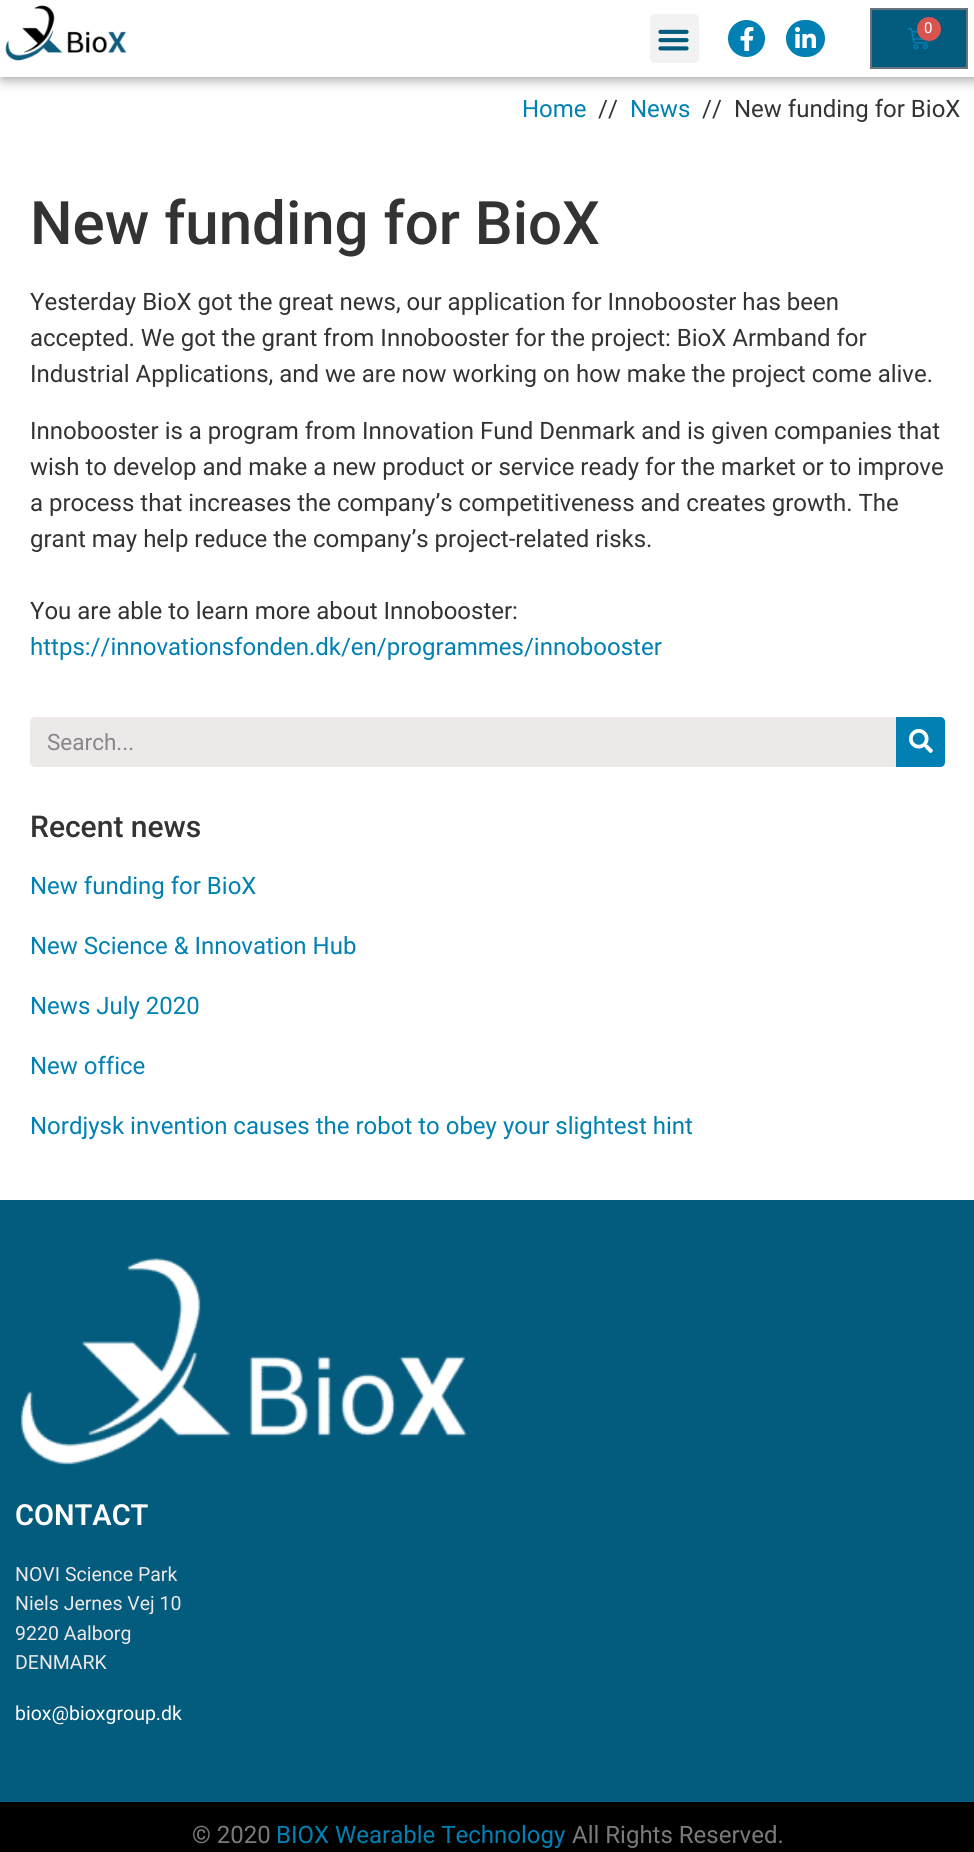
#include <cairo.h>
#include <math.h>
#include <stddef.h>

typedef struct { const char *family; double size; int italic, bold; unsigned color; } style_t;
static cairo_t *ctx;

static void ink(unsigned color) {
    cairo_set_source_rgb(ctx, (color >> 16) / 255.0, (color >> 8 & 255) / 255.0, (color & 255) / 255.0);
}

static void write(double x, double y, const char *s, const style_t *st) {
    cairo_select_font_face(ctx, st->family, st->italic ? CAIRO_FONT_SLANT_ITALIC : CAIRO_FONT_SLANT_NORMAL,
        st->bold ? CAIRO_FONT_WEIGHT_BOLD : CAIRO_FONT_WEIGHT_NORMAL);
    cairo_set_font_size(ctx, st->size);
    ink(st->color);
    cairo_move_to(ctx, x, y);
    cairo_show_text(ctx, s);
}

static void block(double x, double y, double w, double h, unsigned color) {
    ink(color);
    cairo_rectangle(ctx, x, y, w, h);
    cairo_fill(ctx);
}

static void round_path(double x, double y, double w, double h, double r) {
    cairo_new_sub_path(ctx);
    cairo_arc(ctx, x + w - r, y + h - r, r, 0, M_PI / 2);
    cairo_arc(ctx, x + r, y + h - r, r, M_PI / 2, M_PI);
    cairo_arc(ctx, x + r, y + r, r, M_PI, 1.5 * M_PI);
    cairo_arc(ctx, x + w - r, y + r, r, 1.5 * M_PI, 2 * M_PI);
    cairo_close_path(ctx);
}

static void blur_box(double x, double y, double w, double h, double r, double blur, double alpha) {
    cairo_push_group_with_content(ctx, CAIRO_CONTENT_ALPHA);
    cairo_set_operator(ctx, CAIRO_OPERATOR_SOURCE);
    for (int i = 15; i >= -15 && fmin(w, h) + blur * i / 3 > 0; i -= 2) {
        double e = blur * i / 6;
        cairo_set_source_rgba(ctx, 0, 0, 0, alpha * erfc((i - 1) / 8.5) / 2);
        round_path(x - e, y - e, w + 2 * e, h + 2 * e, fmax(0, fmin(r + e + blur * .6, fmin(w, h) / 2 + e)));
        cairo_fill(ctx);
    }
    cairo_pattern_t *soft = cairo_pop_group(ctx);
    cairo_mask(ctx, soft);
    cairo_pattern_destroy(soft);
}

static void paste(const char *path, double x, double y, double w, double h) {
    cairo_surface_t *image = cairo_image_surface_create_from_png(path);
    cairo_save(ctx);
    cairo_set_source_surface(ctx, image, x, y);
    cairo_rectangle(ctx, x, y, w, h);
    cairo_fill(ctx);
    cairo_restore(ctx);
    cairo_surface_destroy(image);
}

static const style_t s1 = {"Roboto", 15, 0, 0, 0xffffff};
static const style_t s2 = {"Roboto", 24, 0, 0, 0x0080b3};
static const style_t s3 = {"Roboto", 24, 0, 0, 0x333333};
static const style_t s4 = {"Roboto Medium", 60, 0, 0, 0x333333};
static const style_t s5 = {"Roboto", 22.5, 0, 0, 0x85868a};
static const style_t s6 = {"Roboto Medium", 30, 0, 0, 0x333333};
static const style_t s7 = {"Roboto SemiBold", 29, 0, 0, 0xffffff};
static const style_t s8 = {"Roboto", 19.5, 0, 0, 0xeee9e9};
static const style_t s9 = {"Roboto", 19.5, 0, 0, 0xffffff};
static const style_t s10 = {"Roboto", 24, 0, 0, 0x7a7a7a};

int main(void) {
    cairo_surface_t *surface = cairo_image_surface_create(CAIRO_FORMAT_RGB24, 974, 1852);
    ctx = cairo_create(surface);
    cairo_font_options_t *options = cairo_font_options_create();
    cairo_font_options_set_hint_metrics(options, CAIRO_HINT_METRICS_OFF);
    cairo_font_options_set_hint_style(options, CAIRO_HINT_STYLE_NONE);
    cairo_set_font_options(ctx, options);
    cairo_set_miter_limit(ctx, 4);
    ink(0xffffff);
    cairo_paint(ctx);
    ink(0x000000);
    blur_box(3, 0, 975, 77, 0, 7.5, 0.5);
    block(0, 0, 974, 77, 0xffffff);
    paste("pic1.png", 5, 5, 122, 56);
    ink(0xf2f2f2);
    round_path(650, 14, 49, 49, 5);
    cairo_fill(ctx);
    paste("pic2.png", 658, 29, 31, 22);
    ink(0x0080b3);
    cairo_arc(ctx, 746.5, 38.5, 18.5, 0, 2 * M_PI);
    cairo_fill(ctx);
    paste("pic3.png", 740, 27, 14, 24);
    round_path(786, 20, 39, 37, 18.5);
    cairo_fill(ctx);
    paste("pic4.png", 795, 27, 21, 21);
    ink(0x035b7d);
    cairo_rectangle(ctx, 871, 9, 96, 59);
    cairo_fill_preserve(ctx);
    ink(0x69727d);
    cairo_stroke(ctx);
    paste("pic5.png", 907, 28, 21, 22);
    ink(0xd9534f);
    cairo_arc(ctx, 929, 29, 12, 0, 2 * M_PI);
    cairo_fill(ctx);
    write(924, 33, "0", &s1);
    write(522, 117, "Home", &s2);
    write(598, 117, "//", &s3);
    write(630, 117, "News", &s2);
    write(702, 117, "//", &s3);
    write(734, 117, "New funding for BioX", &s3);
    write(30, 244, "New funding for BioX", &s4);
    write(30, 310, "Yesterday BioX got the great news, our application for Innobooster has been", &s3);
    write(30, 346, "accepted. We got the grant from Innobooster for the project: BioX Armband for", &s3);
    write(30, 382, "Industrial Applications, and we are now working on how make the project come alive.", &s3);
    write(30, 439, "Innobooster is a program from Innovation Fund Denmark and is given companies that", &s3);
    write(30, 475, "wish to develop and make a new product or service ready for the market or to improve", &s3);
    write(30, 511, "a process that increases the company’s competitiveness and creates growth. The", &s3);
    write(30, 547, "grant may help reduce the company’s project-related risks.", &s3);
    write(30, 619, "You are able to learn more about Innobooster:", &s3);
    write(30, 655, "https://innovationsfonden.dk/en/programmes/innobooster", &s2);
    ink(0xeee9e9);
    round_path(30, 717, 915, 50, 5);
    cairo_fill(ctx);
    write(47, 750, "Search...", &s5);
    ink(0x0080b3);
    cairo_new_path(ctx);
    cairo_move_to(ctx, 896, 717);
    cairo_line_to(ctx, 940, 717);
    cairo_curve_to(ctx, 943, 717, 945, 719, 945, 722);
    cairo_line_to(ctx, 945, 762);
    cairo_curve_to(ctx, 945, 765, 943, 767, 940, 767);
    cairo_line_to(ctx, 896, 767);
    cairo_close_path(ctx);
    cairo_fill(ctx);
    paste("pic6.png", 909, 729, 24, 24);
    write(30, 837, "Recent news", &s6);
    write(30, 894, "New funding for BioX", &s2);
    write(30, 954, "New Science & Innovation Hub", &s2);
    write(30, 1014, "News July 2020", &s2);
    write(30, 1074, "New office", &s2);
    write(30, 1134, "Nordjysk invention causes the robot to obey your slightest hint", &s2);
    block(0, 1200, 974, 602, 0x035b7d);
    paste("pic7.png", 20, 1258, 448, 207);
    write(15, 1525, "CONTACT", &s7);
    write(15, 1581, "NOVI Science Park", &s8);
    write(15, 1610, "Niels Jernes Vej 10", &s8);
    write(15, 1640, "9220 Aalborg", &s8);
    write(15, 1669, "DENMARK", &s8);
    write(15, 1720, "biox@bioxgroup.dk", &s9);
    block(0, 1802, 974, 50, 0x000000);
    write(192, 1843, "© 2020", &s10);
    write(276, 1843, "BIOX Wearable Technology", &s2);
    write(572, 1843, "All Rights Reserved.", &s10);
    cairo_surface_write_to_png(surface, "screenshot.png");
    cairo_font_options_destroy(options);
    cairo_destroy(ctx);
    cairo_surface_destroy(surface);
    return 0;
}
